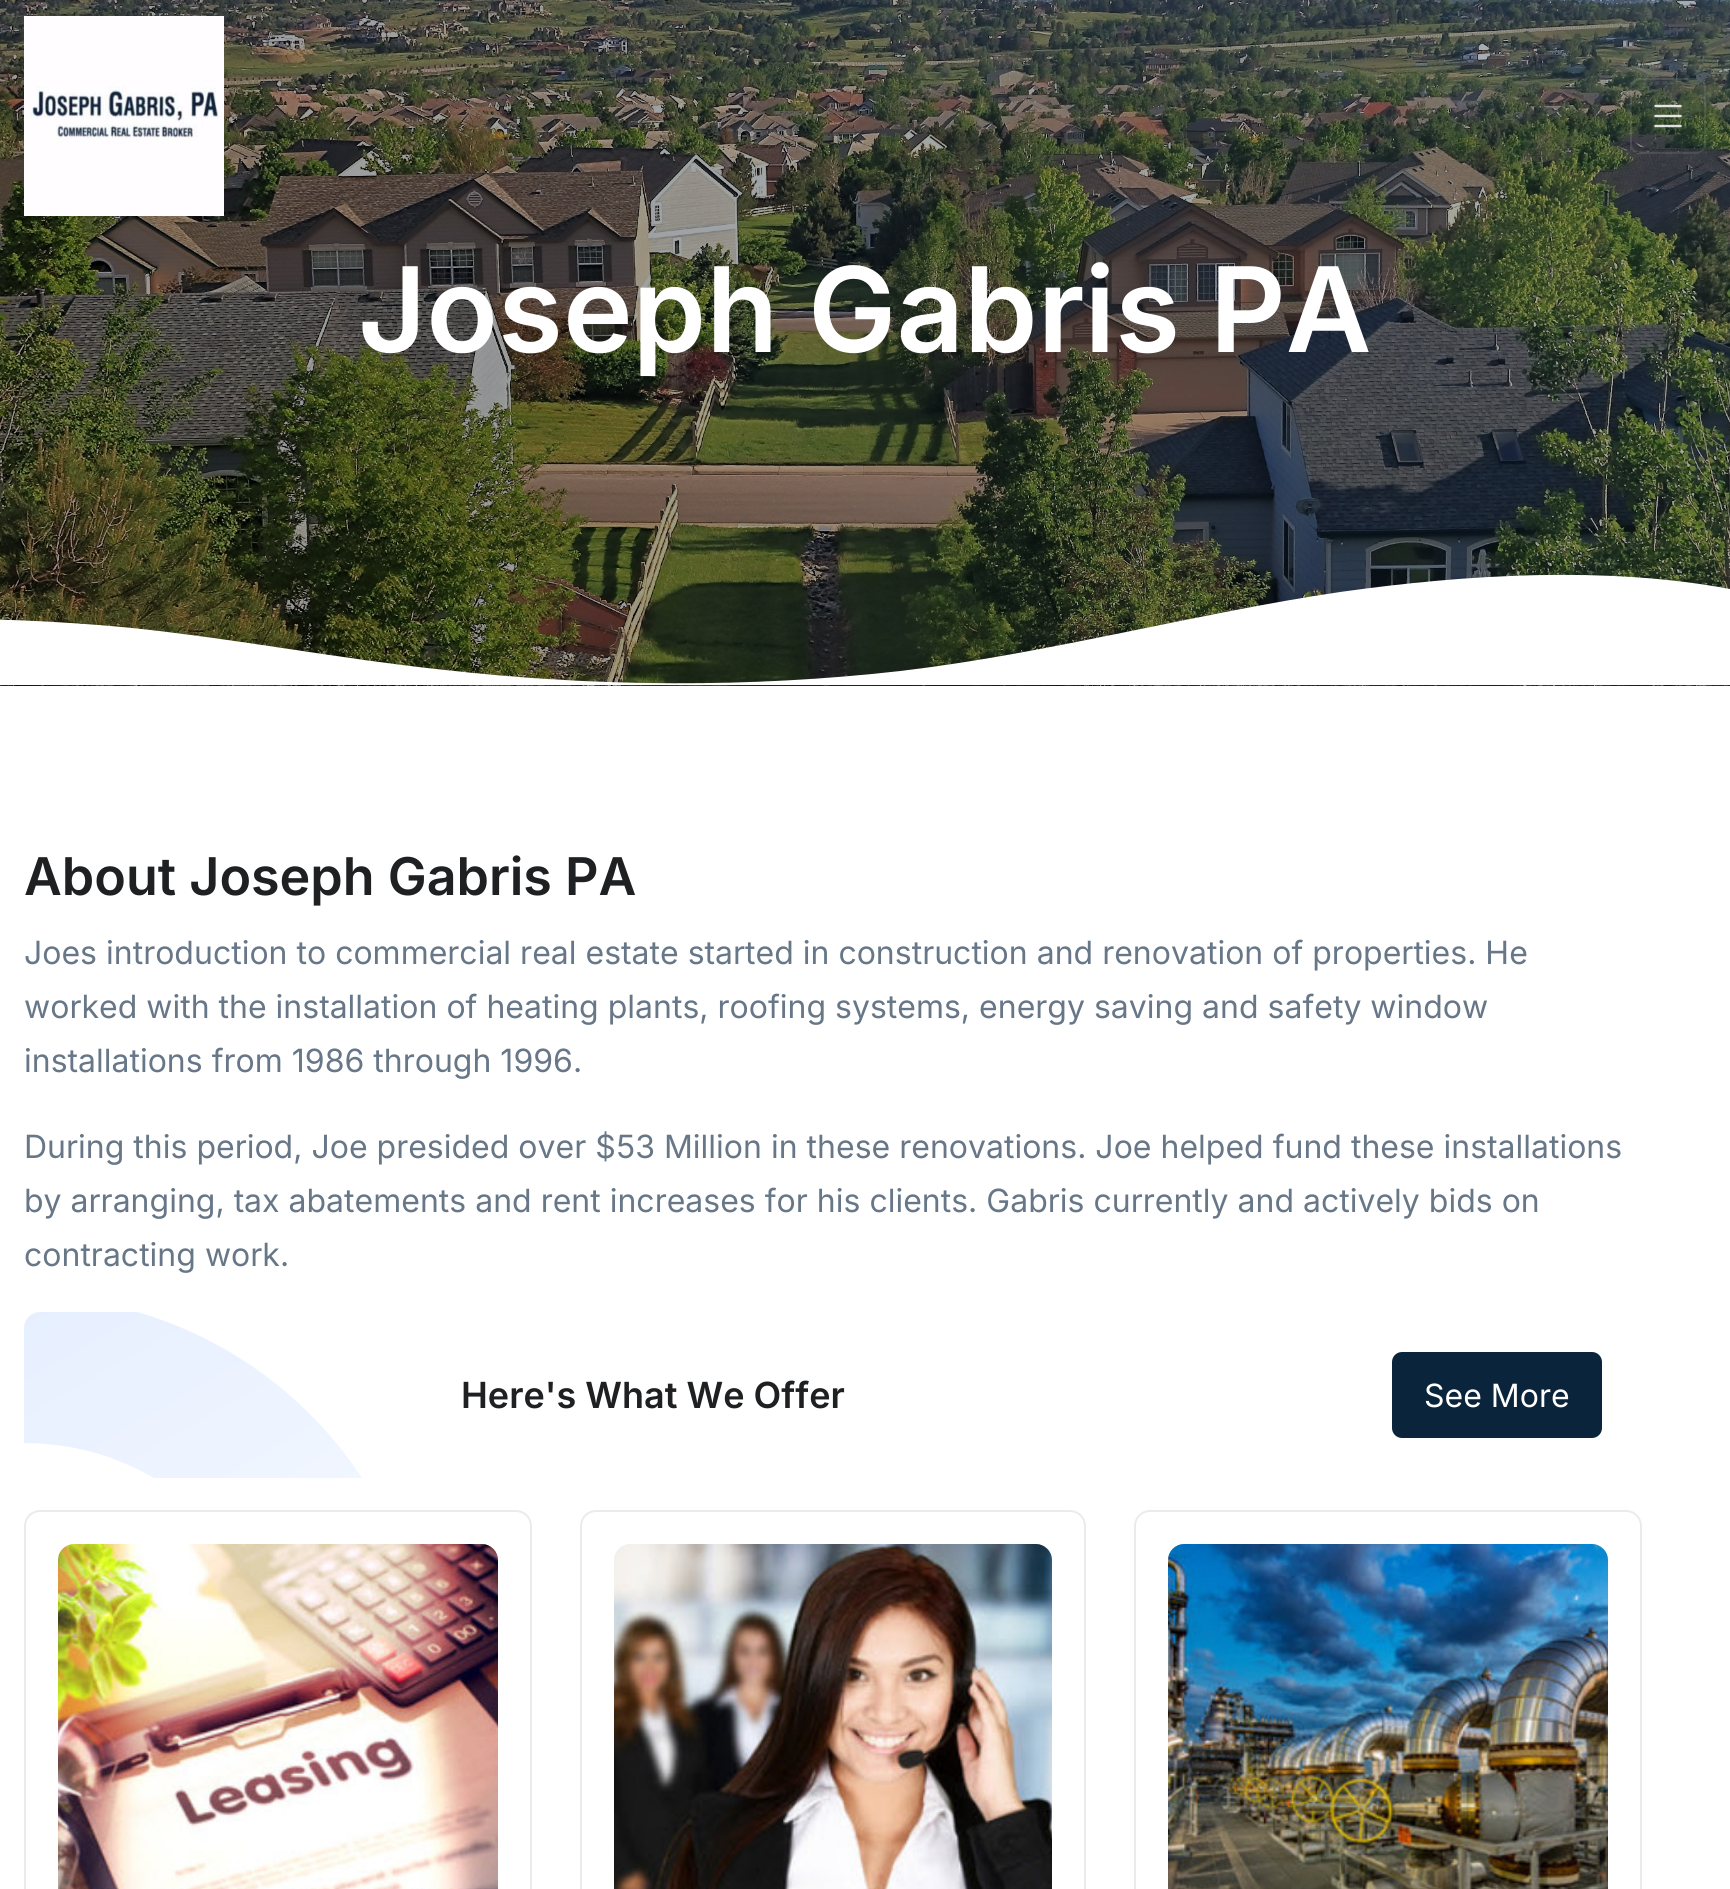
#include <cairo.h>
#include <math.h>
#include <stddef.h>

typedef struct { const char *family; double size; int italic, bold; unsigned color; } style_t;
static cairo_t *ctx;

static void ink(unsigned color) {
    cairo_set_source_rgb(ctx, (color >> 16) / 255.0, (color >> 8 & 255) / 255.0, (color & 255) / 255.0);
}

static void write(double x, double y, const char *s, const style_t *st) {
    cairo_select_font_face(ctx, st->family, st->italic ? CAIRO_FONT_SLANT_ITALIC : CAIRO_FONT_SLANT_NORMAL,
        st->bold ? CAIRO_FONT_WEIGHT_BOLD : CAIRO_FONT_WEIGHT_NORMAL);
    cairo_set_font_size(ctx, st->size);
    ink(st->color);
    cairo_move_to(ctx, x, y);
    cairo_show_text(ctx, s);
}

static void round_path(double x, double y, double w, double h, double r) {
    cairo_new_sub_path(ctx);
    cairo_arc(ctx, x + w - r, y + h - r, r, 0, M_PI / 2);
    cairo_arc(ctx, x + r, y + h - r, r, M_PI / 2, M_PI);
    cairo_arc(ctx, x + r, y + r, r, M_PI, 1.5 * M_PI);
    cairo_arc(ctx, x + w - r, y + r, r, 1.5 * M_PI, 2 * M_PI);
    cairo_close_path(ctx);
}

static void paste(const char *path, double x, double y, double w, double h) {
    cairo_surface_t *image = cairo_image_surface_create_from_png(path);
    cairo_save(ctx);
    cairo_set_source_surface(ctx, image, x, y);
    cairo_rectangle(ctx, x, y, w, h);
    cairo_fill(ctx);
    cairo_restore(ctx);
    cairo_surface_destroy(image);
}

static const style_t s1 = {"Inter SemiBold", 117.9, 0, 0, 0xffffff};
static const style_t s2 = {"Inter SemiBold", 52, 0, 0, 0x1e2022};
static const style_t s3 = {"Inter", 32, 0, 0, 0x677788};
static const style_t s4 = {"Inter SemiBold", 36, 0, 0, 0x1e2022};
static const style_t s5 = {"Inter", 32, 0, 0, 0xffffff};

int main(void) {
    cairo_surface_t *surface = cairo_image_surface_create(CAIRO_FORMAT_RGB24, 1730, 1889);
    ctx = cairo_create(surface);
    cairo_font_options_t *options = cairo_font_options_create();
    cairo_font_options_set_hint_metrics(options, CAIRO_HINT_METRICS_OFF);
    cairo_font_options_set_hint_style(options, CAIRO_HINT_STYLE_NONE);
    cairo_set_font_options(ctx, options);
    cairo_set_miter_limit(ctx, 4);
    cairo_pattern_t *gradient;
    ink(0xffffff);
    cairo_paint(ctx);
    paste("pic3.png", 0, 0, 1730, 686);
    paste("pic1.png", 24, 16, 200, 200);
    round_path(1631, 79, 74, 74, 9);
    cairo_set_source_rgba(ctx, 1, 1, 1, 0.1);
    cairo_stroke(ctx);
    paste("pic2.png", 1654, 104, 28, 24);
    write(358, 352, "Joseph Gabris PA", &s1);
    cairo_new_path(ctx);
    cairo_move_to(ctx, 132, 628);
    cairo_curve_to(ctx, 238, 639, 340, 659, 445, 670);
    cairo_curve_to(ctx, 595, 687, 751, 688, 900, 671);
    cairo_curve_to(ctx, 1046, 654, 1197, 613, 1340, 592);
    cairo_curve_to(ctx, 1468, 574, 1607, 566, 1730, 589);
    cairo_line_to(ctx, 1730, 685);
    cairo_line_to(ctx, -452, 685);
    cairo_line_to(ctx, -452, 658);
    cairo_curve_to(ctx, -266, 619, -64, 609, 132, 628);
    cairo_close_path(ctx);
    cairo_fill(ctx);
    write(24, 895, "About Joseph Gabris PA", &s2);
    write(24, 964, "Joes introduction to commercial real estate started in construction and renovation of properties. He", &s3);
    write(24, 1018, "worked with the installation of heating plants, roofing systems, energy saving and safety window", &s3);
    write(24, 1072, "installations from 1986 through 1996.", &s3);
    write(24, 1158, "During this period, Joe presided over $53 Million in these renovations. Joe helped fund these installations", &s3);
    write(24, 1212, "by arranging, tax abatements and rent increases for his clients. Gabris currently and actively bids on", &s3);
    write(24, 1266, "contracting work.", &s3);
    cairo_save(ctx);
    round_path(24, 1312, 1618, 166, 16);
    cairo_clip(ctx);
    cairo_new_path(ctx);
    cairo_move_to(ctx, 24, 1369.5);
    cairo_curve_to(ctx, 207, 1369.5, 355, 1517.5, 355, 1700.5);
    cairo_curve_to(ctx, 355, 1883.5, 207, 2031.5, 24, 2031.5);
    gradient = cairo_pattern_create_linear(314, 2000, -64, 1347);
    cairo_pattern_add_color_stop_rgba(gradient, 0, 1, 1, 1, 1);
    cairo_pattern_add_color_stop_rgba(gradient, 1, 0.902, 0.937, 1, 1);
    cairo_set_source(ctx, gradient);
    cairo_pattern_destroy(gradient);
    cairo_set_line_width(ctx, 147.1);
    cairo_stroke(ctx);
    cairo_restore(ctx);
    write(461, 1408, "Here's What We Offer", &s4);
    ink(0x0a243c);
    round_path(1392, 1352, 210, 86, 10);
    cairo_fill(ctx);
    write(1424, 1407, "See More", &s5);
    round_path(25, 1511, 506, 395, 15);
    ink(0xe9ebef);
    cairo_stroke(ctx);
    paste("pic4.png", 58, 1544, 440, 345);
    round_path(581, 1511, 504, 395, 15);
    cairo_stroke(ctx);
    paste("pic5.png", 614, 1544, 438, 345);
    round_path(1135, 1511, 506, 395, 15);
    cairo_stroke(ctx);
    paste("pic6.png", 1168, 1544, 440, 345);
    cairo_surface_write_to_png(surface, "screenshot.png");
    cairo_font_options_destroy(options);
    cairo_destroy(ctx);
    cairo_surface_destroy(surface);
    return 0;
}
